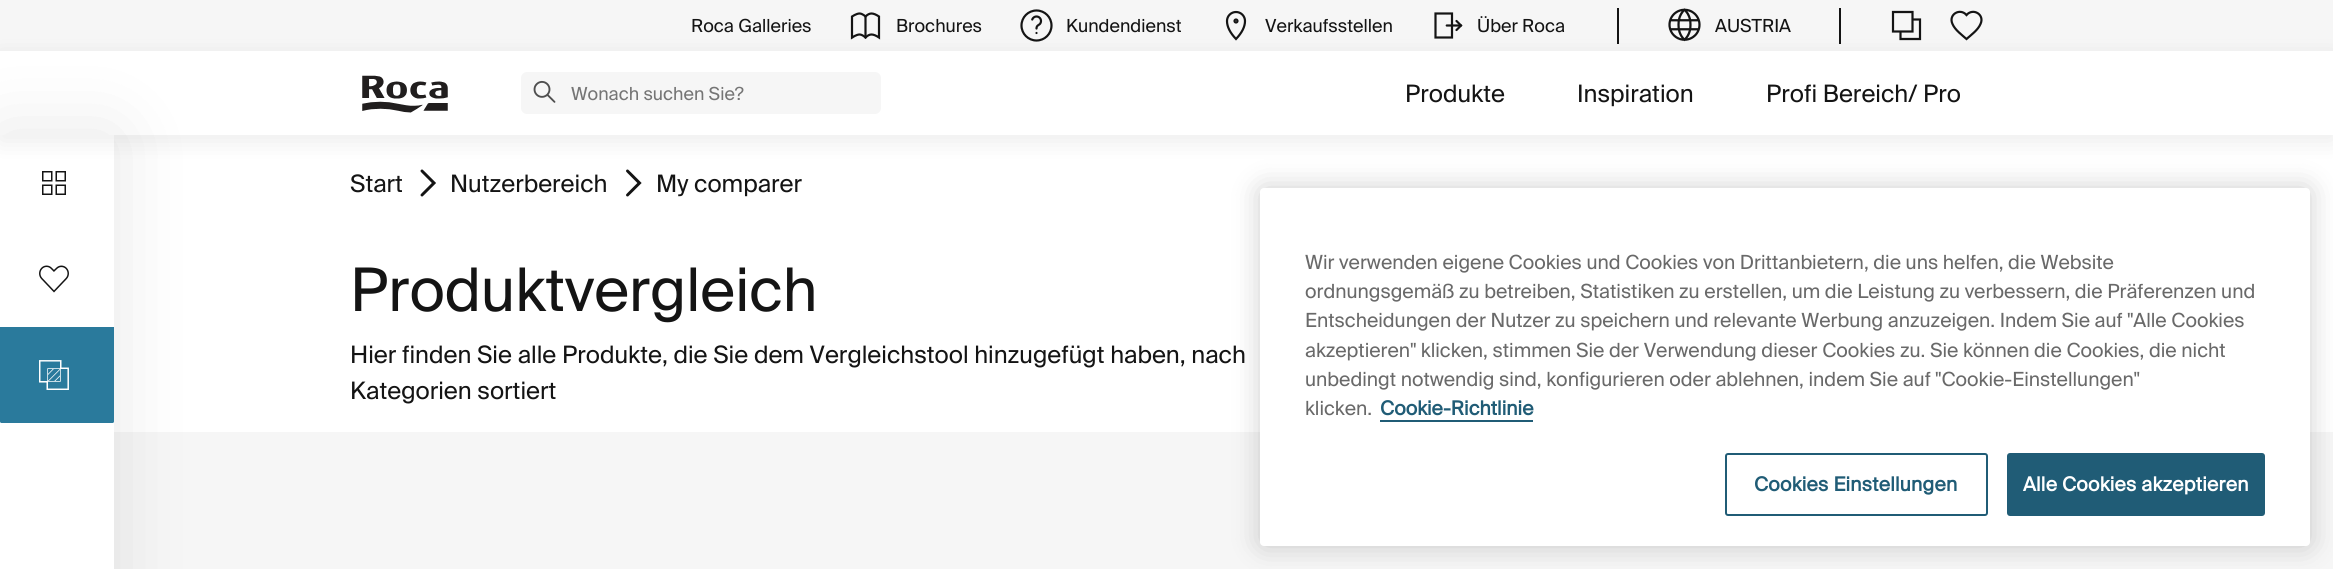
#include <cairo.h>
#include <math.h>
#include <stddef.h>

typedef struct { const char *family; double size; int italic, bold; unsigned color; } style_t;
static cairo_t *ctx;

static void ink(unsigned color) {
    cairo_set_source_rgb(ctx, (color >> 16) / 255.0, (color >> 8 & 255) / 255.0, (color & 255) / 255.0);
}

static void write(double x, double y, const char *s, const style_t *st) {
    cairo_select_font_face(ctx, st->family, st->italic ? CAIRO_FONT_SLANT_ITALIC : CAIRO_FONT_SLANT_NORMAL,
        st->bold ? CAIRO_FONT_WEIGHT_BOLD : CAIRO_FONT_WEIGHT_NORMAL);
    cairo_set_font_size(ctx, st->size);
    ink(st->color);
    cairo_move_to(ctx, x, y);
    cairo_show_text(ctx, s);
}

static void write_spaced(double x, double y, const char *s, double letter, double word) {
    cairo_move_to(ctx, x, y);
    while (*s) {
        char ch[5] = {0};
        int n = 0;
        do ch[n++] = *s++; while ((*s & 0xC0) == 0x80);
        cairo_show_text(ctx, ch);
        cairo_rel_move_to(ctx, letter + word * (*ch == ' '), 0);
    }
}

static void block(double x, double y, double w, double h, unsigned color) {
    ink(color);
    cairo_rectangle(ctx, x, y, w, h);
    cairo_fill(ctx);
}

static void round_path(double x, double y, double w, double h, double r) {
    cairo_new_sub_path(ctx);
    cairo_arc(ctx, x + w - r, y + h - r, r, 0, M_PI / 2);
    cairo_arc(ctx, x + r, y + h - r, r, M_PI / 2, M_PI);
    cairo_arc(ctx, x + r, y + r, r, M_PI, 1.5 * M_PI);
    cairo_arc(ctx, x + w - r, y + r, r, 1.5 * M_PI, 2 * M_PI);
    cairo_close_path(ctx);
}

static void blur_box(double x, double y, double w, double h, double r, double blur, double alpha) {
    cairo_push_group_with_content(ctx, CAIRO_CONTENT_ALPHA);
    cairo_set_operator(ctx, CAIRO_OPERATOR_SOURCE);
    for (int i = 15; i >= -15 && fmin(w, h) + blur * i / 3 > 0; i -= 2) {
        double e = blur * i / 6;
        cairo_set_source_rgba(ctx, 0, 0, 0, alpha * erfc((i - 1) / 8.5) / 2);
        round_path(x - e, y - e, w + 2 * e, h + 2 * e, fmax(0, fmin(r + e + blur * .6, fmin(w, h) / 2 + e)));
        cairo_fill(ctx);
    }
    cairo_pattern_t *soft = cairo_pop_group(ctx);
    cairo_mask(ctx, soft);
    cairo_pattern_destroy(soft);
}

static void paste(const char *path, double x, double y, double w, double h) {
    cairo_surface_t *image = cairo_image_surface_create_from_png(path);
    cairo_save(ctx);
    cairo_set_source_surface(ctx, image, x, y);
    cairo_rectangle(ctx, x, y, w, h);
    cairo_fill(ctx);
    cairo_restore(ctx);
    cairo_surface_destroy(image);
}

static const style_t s1 = {"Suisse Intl", 18, 0, 0, 0x141414};
static const style_t s2 = {"Suisse Intl", 18, 0, 0, 0x757575};
static const style_t s3 = {"Suisse Intl", 24, 0, 0, 0x141414};
static const style_t s4 = {"Suisse Intl", 60, 0, 0, 0x141414};
static const style_t s5 = {"Suisse Intl", 19.5, 0, 0, 0x696969};
static const style_t s6 = {"Suisse Intl", 19.5, 0, 1, 0x205c76};

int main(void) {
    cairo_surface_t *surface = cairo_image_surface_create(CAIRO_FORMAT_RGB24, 2333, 569);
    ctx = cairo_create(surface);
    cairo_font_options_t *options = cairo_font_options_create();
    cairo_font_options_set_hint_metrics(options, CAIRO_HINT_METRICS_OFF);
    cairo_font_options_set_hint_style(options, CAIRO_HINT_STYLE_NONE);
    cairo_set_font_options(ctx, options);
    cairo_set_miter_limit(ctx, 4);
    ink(0xffffff);
    cairo_paint(ctx);
    block(0, 0, 2333, 51, 0xf6f6f6);
    write(691, 32, "Roca Galleries", &s1);
    paste("pic1.png", 850, 12, 31, 28);
    write(896, 32, "Brochures", &s1);
    paste("pic2.png", 1020, 9, 33, 33);
    write(1066, 32, "Kundendienst", &s1);
    paste("pic3.png", 1225, 10, 22, 31);
    write(1265, 32, "Verkaufsstellen", &s1);
    paste("pic4.png", 1434, 12, 29, 27);
    write(1477, 32, "Über Roca", &s1);
    block(1617, 8, 2, 36, 0x141414);
    paste("pic5.png", 1668, 8, 33, 34);
    write(1715, 32, "AUSTRIA", &s1);
    block(1839, 8, 2, 36, 0x141414);
    cairo_new_path(ctx);
    cairo_move_to(ctx, 1912.5, 12);
    cairo_line_to(ctx, 1893, 12);
    cairo_line_to(ctx, 1893, 31.5);
    cairo_line_to(ctx, 1912.5, 31.5);
    cairo_close_path(ctx);
    cairo_move_to(ctx, 1912.5, 19.5);
    cairo_line_to(ctx, 1920, 19.5);
    cairo_line_to(ctx, 1920, 39);
    cairo_line_to(ctx, 1900.5, 39);
    cairo_line_to(ctx, 1900.5, 31.5);
    cairo_set_line_width(ctx, 2.2);
    cairo_set_line_cap(ctx, CAIRO_LINE_CAP_ROUND);
    cairo_stroke(ctx);
    cairo_new_path(ctx);
    cairo_move_to(ctx, 1966.5, 39);
    cairo_curve_to(ctx, 1962, 35, 1955, 30, 1952.5, 24);
    cairo_curve_to(ctx, 1948, 14.5, 1960, 7.5, 1966.5, 15);
    cairo_curve_to(ctx, 1973, 7.5, 1985, 14.5, 1980.5, 24);
    cairo_curve_to(ctx, 1978, 30, 1971, 35, 1966.5, 39);
    cairo_close_path(ctx);
    cairo_stroke(ctx);
    paste("pic6.png", 362, 75, 86, 38);
    ink(0xf6f6f6);
    round_path(521, 72, 360, 42, 6);
    cairo_fill(ctx);
    paste("pic7.png", 533, 80, 23, 23);
    block(114, 432, 2219, 137, 0xf6f6f6);
    ink(0x000000);
    blur_box(0, 135, 114, 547, 0, 37.5, 0.1);
    block(0, 135, 114, 434, 0xffffff);
    paste("pic8.png", 42, 171, 24, 24);
    paste("pic11.png", 420, 169, 16, 28);
    paste("pic12.png", 626, 169, 16, 28);
    cairo_save(ctx);
    cairo_set_fill_rule(ctx, CAIRO_FILL_RULE_EVEN_ODD);
    cairo_new_path(ctx);
    cairo_move_to(ctx, 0, 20);
    cairo_line_to(ctx, 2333, 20);
    cairo_line_to(ctx, 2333, 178);
    cairo_line_to(ctx, 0, 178);
    cairo_close_path(ctx);
    cairo_move_to(ctx, 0, 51);
    cairo_line_to(ctx, 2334, 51);
    cairo_line_to(ctx, 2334, 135);
    cairo_line_to(ctx, 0, 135);
    cairo_close_path(ctx);
    cairo_clip(ctx);
    ink(0x000000);
    blur_box(0, 57, 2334, 84, 0, 12, 0.08);
    cairo_restore(ctx);
    write(571, 100, "Wonach suchen Sie?", &s2);
    write(1405, 102, "Produkte", &s3);
    write(1577, 102, "Inspiration", &s3);
    write(1766, 102, "Profi Bereich/ Pro", &s3);
    paste("pic9.png", 39, 265, 30, 28);
    ink(0x2a7a9c);
    round_path(0, 327, 114, 96, 1.5);
    cairo_fill(ctx);
    block(0, 327, 114, 2, 0x2a7a9c);
    paste("pic10.png", 39, 360, 30, 30);
    write(350, 192, "Start", &s3);
    write(450, 192, "Nutzerbereich", &s3);
    write(656, 192, "My comparer", &s3);
    write(350, 311, "Produktvergleich", &s4);
    write(350, 363, "Hier finden Sie alle Produkte, die Sie dem Vergleichstool hinzugefügt haben, nach", &s3);
    write(350, 399, "Kategorien sortiert", &s3);
    ink(0x000000);
    blur_box(1260, 188, 1050, 358, 4, 13.5, 0.2);
    ink(0xffffff);
    round_path(1260, 188, 1050, 358, 4);
    cairo_fill(ctx);
    write(1305, 269, "Wir verwenden eigene Cookies und Cookies von Drittanbietern, die uns helfen, die Website", &s5);
    write(1305, 298, "ordnungsgemäß zu betreiben, Statistiken zu erstellen, um die Leistung zu verbessern, die Präferenzen und", &s5);
    write(1305, 327, "Entscheidungen der Nutzer zu speichern und relevante Werbung anzuzeigen. Indem Sie auf \"Alle Cookies", &s5);
    write(1305, 357, "akzeptieren\" klicken, stimmen Sie der Verwendung dieser Cookies zu. Sie können die Cookies, die nicht", &s5);
    write(1305, 386, "unbedingt notwendig sind, konfigurieren oder ablehnen, indem Sie auf \"Cookie-Einstellungen\"", &s5);
    write(1305, 415, "klicken.", &s5);
    write(1380, 415, "Cookie-Richtlinie", &s6);
    block(1380, 420, 153, 2, 0x205c76);
    round_path(1726, 454, 261, 61, 2);
    cairo_set_line_width(ctx, 2);
    cairo_set_line_cap(ctx, CAIRO_LINE_CAP_BUTT);
    cairo_stroke(ctx);
    write_spaced(1754, 491, "Cookies Einstellungen", 0.2, 0);
    round_path(2008, 454, 256, 61, 2);
    cairo_fill_preserve(ctx);
    cairo_stroke(ctx);
    ink(0xffffff);
    write_spaced(2023, 491, "Alle Cookies akzeptieren", 0.2, 0);
    cairo_surface_write_to_png(surface, "screenshot.png");
    cairo_font_options_destroy(options);
    cairo_destroy(ctx);
    cairo_surface_destroy(surface);
    return 0;
}
